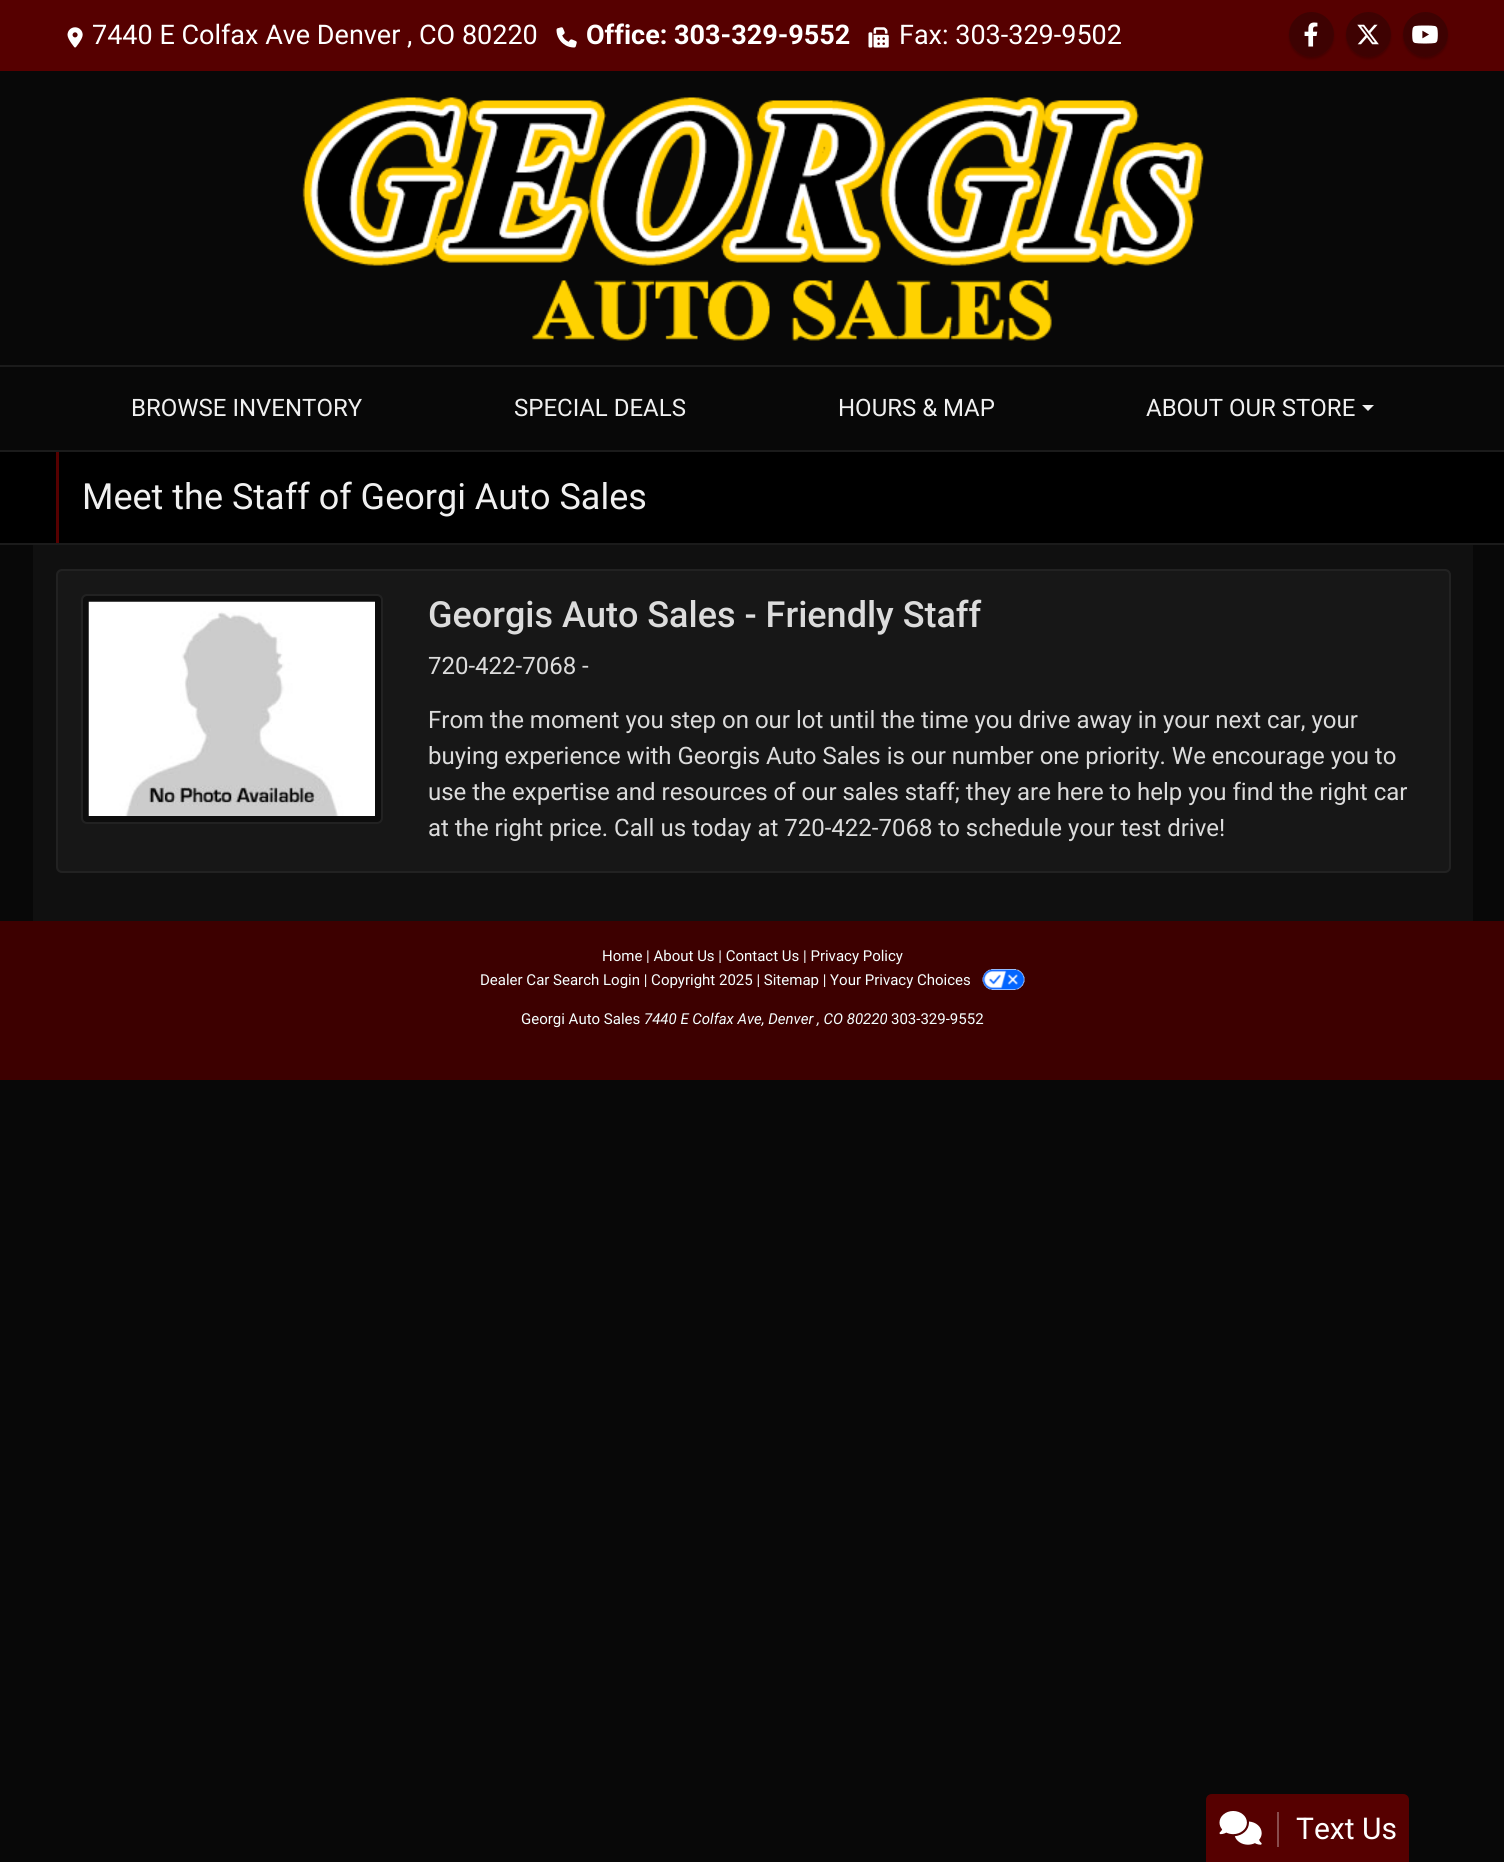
#include <cairo.h>
#include <math.h>
#include <stddef.h>

typedef struct { const char *family; double size; int italic, bold; unsigned color; } style_t;
static cairo_t *ctx;

static void ink(unsigned color) {
    cairo_set_source_rgb(ctx, (color >> 16) / 255.0, (color >> 8 & 255) / 255.0, (color & 255) / 255.0);
}

static void write(double x, double y, const char *s, const style_t *st) {
    cairo_select_font_face(ctx, st->family, st->italic ? CAIRO_FONT_SLANT_ITALIC : CAIRO_FONT_SLANT_NORMAL,
        st->bold ? CAIRO_FONT_WEIGHT_BOLD : CAIRO_FONT_WEIGHT_NORMAL);
    cairo_set_font_size(ctx, st->size);
    ink(st->color);
    cairo_move_to(ctx, x, y);
    cairo_show_text(ctx, s);
}

static void block(double x, double y, double w, double h, unsigned color) {
    ink(color);
    cairo_rectangle(ctx, x, y, w, h);
    cairo_fill(ctx);
}

static void round_path(double x, double y, double w, double h, double r) {
    cairo_new_sub_path(ctx);
    cairo_arc(ctx, x + w - r, y + h - r, r, 0, M_PI / 2);
    cairo_arc(ctx, x + r, y + h - r, r, M_PI / 2, M_PI);
    cairo_arc(ctx, x + r, y + r, r, M_PI, 1.5 * M_PI);
    cairo_arc(ctx, x + w - r, y + r, r, 1.5 * M_PI, 2 * M_PI);
    cairo_close_path(ctx);
}

static void blur_box(double x, double y, double w, double h, double r, double blur, double alpha) {
    cairo_push_group_with_content(ctx, CAIRO_CONTENT_ALPHA);
    cairo_set_operator(ctx, CAIRO_OPERATOR_SOURCE);
    for (int i = 15; i >= -15 && fmin(w, h) + blur * i / 3 > 0; i -= 2) {
        double e = blur * i / 6;
        cairo_set_source_rgba(ctx, 0, 0, 0, alpha * erfc((i - 1) / 8.5) / 2);
        round_path(x - e, y - e, w + 2 * e, h + 2 * e, fmax(0, fmin(r + e + blur * .6, fmin(w, h) / 2 + e)));
        cairo_fill(ctx);
    }
    cairo_pattern_t *soft = cairo_pop_group(ctx);
    cairo_mask(ctx, soft);
    cairo_pattern_destroy(soft);
}

static void paste(const char *path, double x, double y, double w, double h) {
    cairo_surface_t *image = cairo_image_surface_create_from_png(path);
    cairo_save(ctx);
    cairo_set_source_surface(ctx, image, x, y);
    cairo_rectangle(ctx, x, y, w, h);
    cairo_fill(ctx);
    cairo_restore(ctx);
    cairo_surface_destroy(image);
}

static const style_t s1 = {"Roboto", 27, 0, 0, 0xffffff};
static const style_t s2 = {"Roboto", 27, 0, 1, 0xffffff};
static const style_t s3 = {"Roboto", 24, 0, 0, 0xf0f0f0};
static const style_t s4 = {"Roboto", 36, 0, 0, 0xf0f0f0};
static const style_t s5 = {"Roboto Medium", 36, 0, 0, 0xdcdcdc};
static const style_t s6 = {"Roboto", 24, 0, 0, 0xdcdcdc};
static const style_t s7 = {"Roboto", 15, 0, 0, 0xf6ffff};
static const style_t s8 = {"Roboto", 15, 1, 0, 0xf6ffff};
static const style_t s9 = {"Roboto", 30, 0, 0, 0xffffff};

int main(void) {
    cairo_surface_t *surface = cairo_image_surface_create(CAIRO_FORMAT_RGB24, 1504, 1862);
    ctx = cairo_create(surface);
    cairo_font_options_t *options = cairo_font_options_create();
    cairo_font_options_set_hint_metrics(options, CAIRO_HINT_METRICS_OFF);
    cairo_font_options_set_hint_style(options, CAIRO_HINT_STYLE_NONE);
    cairo_set_font_options(ctx, options);
    cairo_set_miter_limit(ctx, 4);
    ink(0x080808);
    cairo_paint(ctx);
    block(0, 0, 1504, 71, 0x560000);
    paste("pic1.png", 67, 27, 16, 21);
    write(92, 44, "7440 E Colfax Ave Denver , CO 80220", &s1);
    paste("pic2.png", 556, 27, 21, 21);
    write(586, 44, "Office: 303-329-9552", &s2);
    paste("pic3.png", 868, 27, 21, 21);
    write(899, 44, "Fax: 303-329-9502", &s1);
    cairo_save(ctx);
    cairo_set_fill_rule(ctx, CAIRO_FILL_RULE_EVEN_ODD);
    cairo_new_path(ctx);
    cairo_move_to(ctx, 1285, 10);
    cairo_line_to(ctx, 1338, 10);
    cairo_line_to(ctx, 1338, 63);
    cairo_line_to(ctx, 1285, 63);
    cairo_close_path(ctx);
    cairo_move_to(ctx, 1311.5, 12);
    cairo_curve_to(ctx, 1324, 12, 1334, 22, 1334, 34.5);
    cairo_curve_to(ctx, 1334, 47, 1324, 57, 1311.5, 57);
    cairo_curve_to(ctx, 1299, 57, 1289, 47, 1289, 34.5);
    cairo_curve_to(ctx, 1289, 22, 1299, 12, 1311.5, 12);
    cairo_close_path(ctx);
    cairo_clip(ctx);
    ink(0x000000);
    blur_box(1289, 14, 45, 45, 22.5, 1, 0.2);
    cairo_restore(ctx);
    cairo_set_source_rgba(ctx, 0.031, 0.031, 0.031, 0.3);
    cairo_arc(ctx, 1311.5, 34.5, 22.5, 0, 2 * M_PI);
    cairo_fill(ctx);
    paste("pic4.png", 1304, 22, 14, 25);
    cairo_save(ctx);
    cairo_set_fill_rule(ctx, CAIRO_FILL_RULE_EVEN_ODD);
    cairo_new_path(ctx);
    cairo_move_to(ctx, 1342, 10);
    cairo_line_to(ctx, 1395, 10);
    cairo_line_to(ctx, 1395, 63);
    cairo_line_to(ctx, 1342, 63);
    cairo_close_path(ctx);
    cairo_move_to(ctx, 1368.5, 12);
    cairo_curve_to(ctx, 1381, 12, 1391, 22, 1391, 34.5);
    cairo_curve_to(ctx, 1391, 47, 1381, 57, 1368.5, 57);
    cairo_curve_to(ctx, 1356, 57, 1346, 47, 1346, 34.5);
    cairo_curve_to(ctx, 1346, 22, 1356, 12, 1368.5, 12);
    cairo_close_path(ctx);
    cairo_clip(ctx);
    ink(0x000000);
    blur_box(1346, 14, 45, 45, 22.5, 1, 0.2);
    cairo_restore(ctx);
    cairo_arc(ctx, 1368.5, 34.5, 22.5, 0, 2 * M_PI);
    cairo_fill(ctx);
    paste("pic5.png", 1357, 24, 22, 21);
    cairo_save(ctx);
    cairo_set_fill_rule(ctx, CAIRO_FILL_RULE_EVEN_ODD);
    cairo_new_path(ctx);
    cairo_move_to(ctx, 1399, 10);
    cairo_line_to(ctx, 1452, 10);
    cairo_line_to(ctx, 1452, 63);
    cairo_line_to(ctx, 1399, 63);
    cairo_close_path(ctx);
    cairo_move_to(ctx, 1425.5, 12);
    cairo_curve_to(ctx, 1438, 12, 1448, 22, 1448, 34.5);
    cairo_curve_to(ctx, 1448, 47, 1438, 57, 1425.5, 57);
    cairo_curve_to(ctx, 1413, 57, 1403, 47, 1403, 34.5);
    cairo_curve_to(ctx, 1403, 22, 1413, 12, 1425.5, 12);
    cairo_close_path(ctx);
    cairo_clip(ctx);
    ink(0x000000);
    blur_box(1403, 14, 45, 45, 22.5, 1, 0.2);
    cairo_restore(ctx);
    cairo_arc(ctx, 1425.5, 34.5, 22.5, 0, 2 * M_PI);
    cairo_fill(ctx);
    paste("pic6.png", 1412, 25, 26, 19);
    paste("pic7.png", 302, 97, 902, 244);
    block(0, 365, 1504, 2, 0x1b1b1b);
    write(131, 416, "BROWSE INVENTORY", &s3);
    write(514, 416, "SPECIAL DEALS", &s3);
    write(838, 416, "HOURS & MAP", &s3);
    write(1146, 416, "ABOUT OUR STORE", &s3);
    cairo_new_path(ctx);
    cairo_move_to(ctx, 1362, 405);
    cairo_line_to(ctx, 1374, 405);
    cairo_line_to(ctx, 1368, 411);
    cairo_close_path(ctx);
    cairo_fill(ctx);
    block(0, 452, 1504, 91, 0x000000);
    block(0, 450, 1504, 2, 0x1b1b1b);
    block(0, 543, 1504, 2, 0x1b1b1b);
    block(56, 452, 3, 91, 0x560000);
    write(82, 509, "Meet the Staff of Georgi Auto Sales", &s4);
    block(33, 545, 1440, 376, 0x101010);
    ink(0x171717);
    round_path(57, 570, 1393, 302, 5);
    cairo_fill_preserve(ctx);
    ink(0x222222);
    cairo_stroke(ctx);
    ink(0x0d0d0d);
    round_path(82, 595, 300, 228, 5);
    cairo_fill_preserve(ctx);
    ink(0x222222);
    cairo_stroke(ctx);
    paste("pic8.png", 88, 601, 287, 215);
    write(428, 627, "Georgis Auto Sales - Friendly Staff", &s5);
    write(428, 674, "720-422-7068 -", &s6);
    write(428, 728, "From the moment you step on our lot until the time you drive away in your next car, your", &s6);
    write(428, 764, "buying experience with Georgis Auto Sales is our number one priority. We encourage you to", &s6);
    write(428, 800, "use the expertise and resources of our sales staff; they are here to help you find the right car", &s6);
    write(428, 836, "at the right price. Call us today at 720-422-7068 to schedule your test drive!", &s6);
    block(0, 921, 1504, 159, 0x3d0000);
    write(602, 961, "Home | About Us | Contact Us | Privacy Policy", &s7);
    write(480, 985, "Dealer Car Search Login | Copyright 2025 | Sitemap | Your Privacy Choices", &s7);
    paste("pic9.png", 982, 969, 43, 21);
    write(521, 1024, "Georgi Auto Sales", &s7);
    write(644, 1024, "7440 E Colfax Ave, Denver , CO 80220", &s8);
    write(891, 1024, "303-329-9552", &s7);
    ink(0x560000);
    cairo_new_path(ctx);
    cairo_move_to(ctx, 1212, 1794);
    cairo_line_to(ctx, 1403, 1794);
    cairo_curve_to(ctx, 1406.5, 1794, 1409, 1796.5, 1409, 1800);
    cairo_line_to(ctx, 1409, 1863);
    cairo_line_to(ctx, 1206, 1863);
    cairo_line_to(ctx, 1206, 1800);
    cairo_curve_to(ctx, 1206, 1796.5, 1208.5, 1794, 1212, 1794);
    cairo_close_path(ctx);
    cairo_fill(ctx);
    block(1277, 1812, 2, 35, 0x894d4d);
    paste("pic10.png", 1219, 1811, 43, 34);
    write(1296, 1839, "Text Us", &s9);
    cairo_surface_write_to_png(surface, "screenshot.png");
    cairo_font_options_destroy(options);
    cairo_destroy(ctx);
    cairo_surface_destroy(surface);
    return 0;
}
